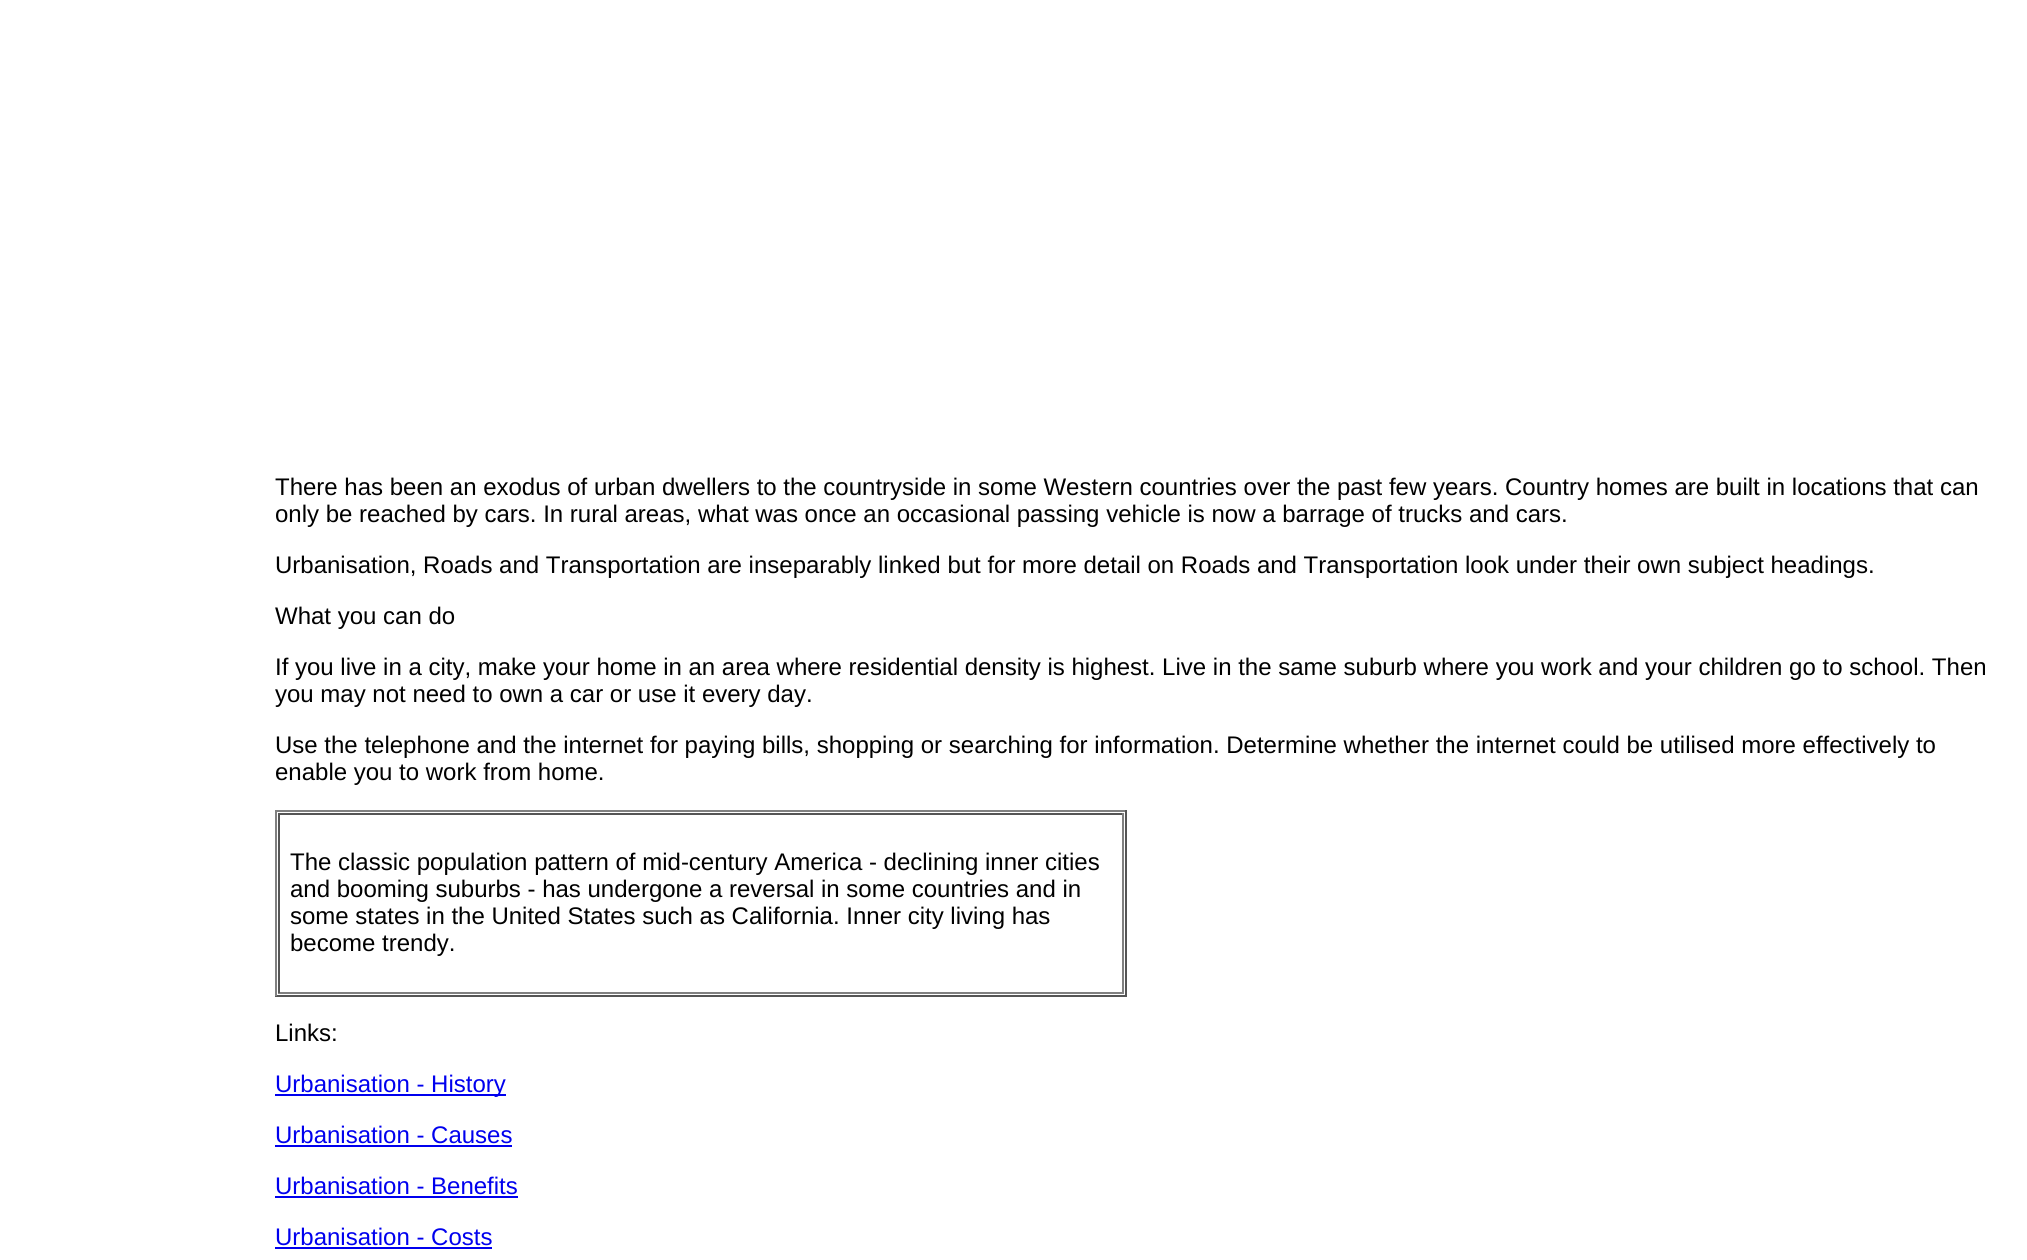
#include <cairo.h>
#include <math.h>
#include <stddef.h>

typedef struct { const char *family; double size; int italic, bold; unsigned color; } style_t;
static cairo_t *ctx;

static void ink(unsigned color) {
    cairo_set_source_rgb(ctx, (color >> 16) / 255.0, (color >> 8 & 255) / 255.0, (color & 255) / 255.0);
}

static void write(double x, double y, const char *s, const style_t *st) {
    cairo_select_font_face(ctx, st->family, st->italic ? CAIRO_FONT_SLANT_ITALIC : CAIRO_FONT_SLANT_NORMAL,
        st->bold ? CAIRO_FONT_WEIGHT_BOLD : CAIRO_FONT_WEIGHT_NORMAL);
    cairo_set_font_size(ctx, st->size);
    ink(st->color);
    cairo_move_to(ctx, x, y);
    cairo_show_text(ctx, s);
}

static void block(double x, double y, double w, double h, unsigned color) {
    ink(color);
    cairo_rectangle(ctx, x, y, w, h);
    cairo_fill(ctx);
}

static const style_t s1 = {"Liberation Sans", 24, 0, 0, 0x000000};
static const style_t s2 = {"Liberation Sans", 24, 0, 0, 0x0000ee};

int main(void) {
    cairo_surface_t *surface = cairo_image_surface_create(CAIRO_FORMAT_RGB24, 2027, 1260);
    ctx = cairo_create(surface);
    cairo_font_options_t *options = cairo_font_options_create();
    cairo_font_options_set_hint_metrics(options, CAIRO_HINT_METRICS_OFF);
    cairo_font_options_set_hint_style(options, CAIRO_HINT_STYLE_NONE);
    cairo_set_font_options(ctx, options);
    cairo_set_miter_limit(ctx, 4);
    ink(0xffffff);
    cairo_paint(ctx);
    write(275, 495, "There has been an exodus of urban dwellers to the countryside in some Western countries over the past few years. Country homes are built in locations that can", &s1);
    write(275, 522, "only be reached by cars. In rural areas, what was once an occasional passing vehicle is now a barrage of trucks and cars.", &s1);
    write(275, 573, "Urbanisation, Roads and Transportation are inseparably linked but for more detail on Roads and Transportation look under their own subject headings.", &s1);
    write(275, 624, "What you can do", &s1);
    write(275, 675, "If you live in a city, make your home in an area where residential density is highest. Live in the same suburb where you work and your children go to school. Then", &s1);
    write(275, 702, "you may not need to own a car or use it every day.", &s1);
    write(275, 753, "Use the telephone and the internet for paying bills, shopping or searching for information. Determine whether the internet could be utilised more effectively to", &s1);
    write(275, 780, "enable you to work from home.", &s1);
    block(275, 810, 852, 2, 0x808080);
    block(1125, 810, 2, 186, 0x555555);
    block(275, 995, 852, 2, 0x555555);
    block(275, 810, 2, 186, 0x808080);
    block(278, 813, 846, 2, 0x555555);
    block(1122, 813, 2, 180, 0x808080);
    block(278, 992, 846, 2, 0x808080);
    block(278, 813, 2, 180, 0x555555);
    write(290, 870, "The classic population pattern of mid-century America - declining inner cities", &s1);
    write(290, 897, "and booming suburbs - has undergone a reversal in some countries and in", &s1);
    write(290, 924, "some states in the United States such as California. Inner city living has", &s1);
    write(290, 951, "become trendy.", &s1);
    write(275, 1041, "Links:", &s1);
    block(275, 1094, 231, 2, 0x0000ee);
    write(275, 1092, "Urbanisation - History", &s2);
    write(275, 1143, "Urbanisation - Causes", &s2);
    block(275, 1145, 237, 2, 0x0000ee);
    write(275, 1194, "Urbanisation - Benefits", &s2);
    block(275, 1196, 243, 2, 0x0000ee);
    write(275, 1245, "Urbanisation - Costs", &s2);
    block(275, 1247, 217, 2, 0x0000ee);
    cairo_surface_write_to_png(surface, "screenshot.png");
    cairo_font_options_destroy(options);
    cairo_destroy(ctx);
    cairo_surface_destroy(surface);
    return 0;
}
